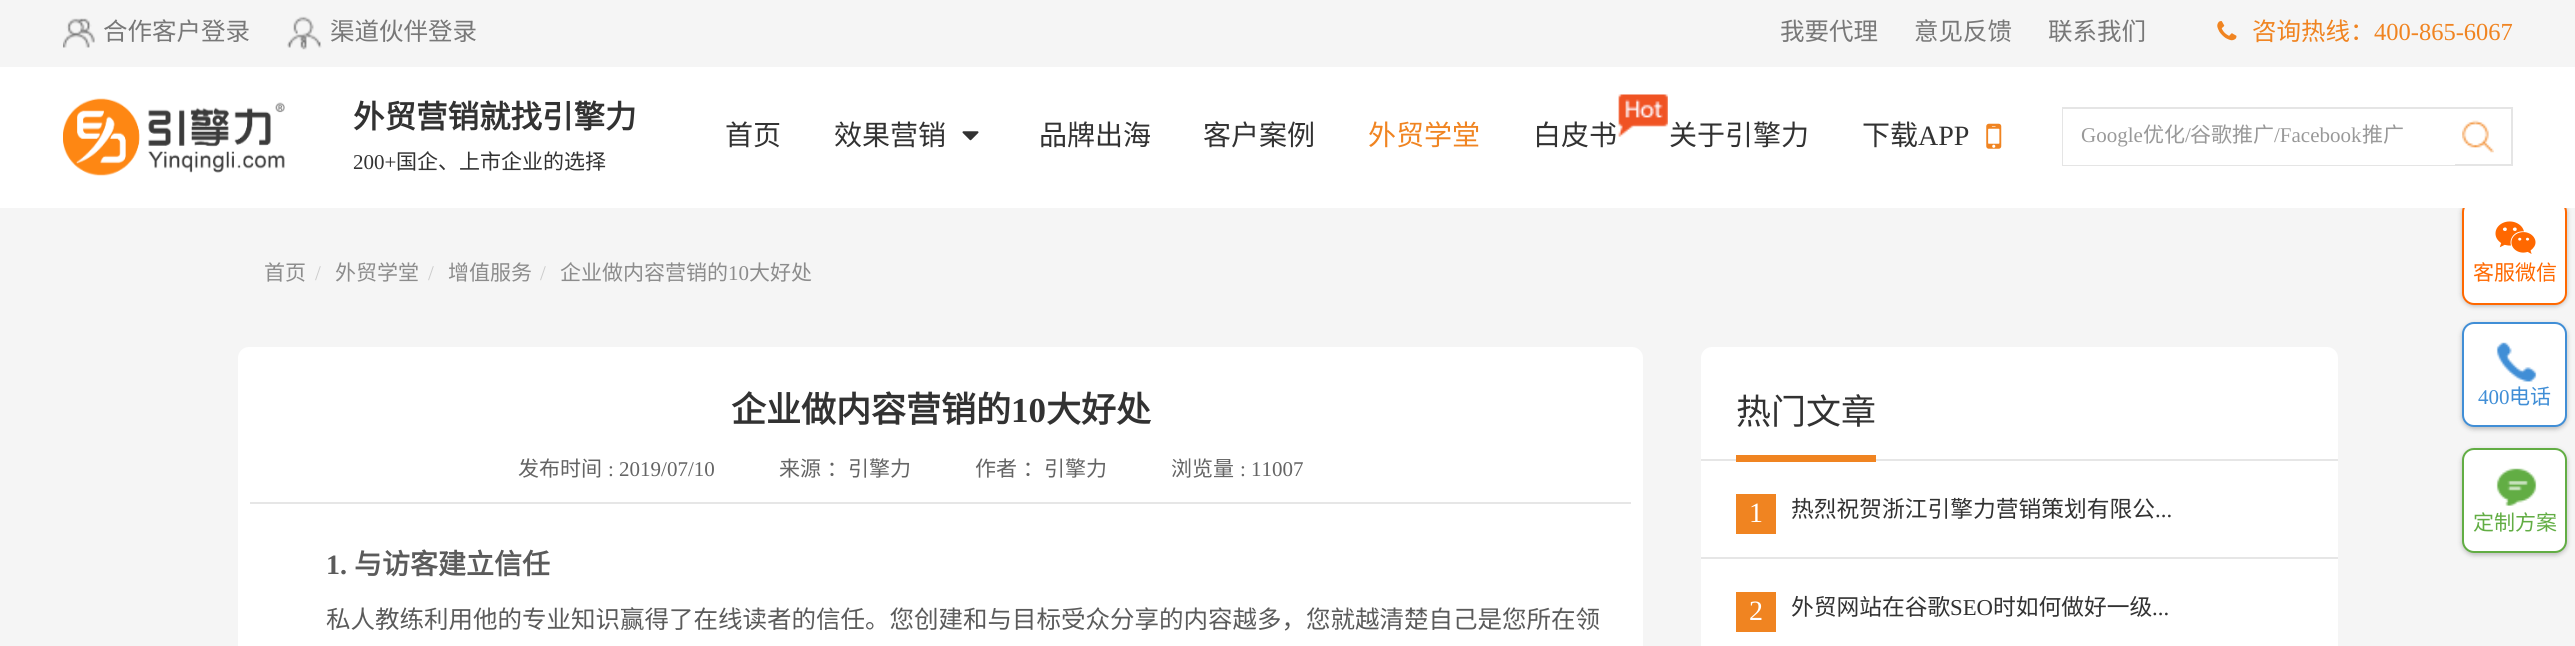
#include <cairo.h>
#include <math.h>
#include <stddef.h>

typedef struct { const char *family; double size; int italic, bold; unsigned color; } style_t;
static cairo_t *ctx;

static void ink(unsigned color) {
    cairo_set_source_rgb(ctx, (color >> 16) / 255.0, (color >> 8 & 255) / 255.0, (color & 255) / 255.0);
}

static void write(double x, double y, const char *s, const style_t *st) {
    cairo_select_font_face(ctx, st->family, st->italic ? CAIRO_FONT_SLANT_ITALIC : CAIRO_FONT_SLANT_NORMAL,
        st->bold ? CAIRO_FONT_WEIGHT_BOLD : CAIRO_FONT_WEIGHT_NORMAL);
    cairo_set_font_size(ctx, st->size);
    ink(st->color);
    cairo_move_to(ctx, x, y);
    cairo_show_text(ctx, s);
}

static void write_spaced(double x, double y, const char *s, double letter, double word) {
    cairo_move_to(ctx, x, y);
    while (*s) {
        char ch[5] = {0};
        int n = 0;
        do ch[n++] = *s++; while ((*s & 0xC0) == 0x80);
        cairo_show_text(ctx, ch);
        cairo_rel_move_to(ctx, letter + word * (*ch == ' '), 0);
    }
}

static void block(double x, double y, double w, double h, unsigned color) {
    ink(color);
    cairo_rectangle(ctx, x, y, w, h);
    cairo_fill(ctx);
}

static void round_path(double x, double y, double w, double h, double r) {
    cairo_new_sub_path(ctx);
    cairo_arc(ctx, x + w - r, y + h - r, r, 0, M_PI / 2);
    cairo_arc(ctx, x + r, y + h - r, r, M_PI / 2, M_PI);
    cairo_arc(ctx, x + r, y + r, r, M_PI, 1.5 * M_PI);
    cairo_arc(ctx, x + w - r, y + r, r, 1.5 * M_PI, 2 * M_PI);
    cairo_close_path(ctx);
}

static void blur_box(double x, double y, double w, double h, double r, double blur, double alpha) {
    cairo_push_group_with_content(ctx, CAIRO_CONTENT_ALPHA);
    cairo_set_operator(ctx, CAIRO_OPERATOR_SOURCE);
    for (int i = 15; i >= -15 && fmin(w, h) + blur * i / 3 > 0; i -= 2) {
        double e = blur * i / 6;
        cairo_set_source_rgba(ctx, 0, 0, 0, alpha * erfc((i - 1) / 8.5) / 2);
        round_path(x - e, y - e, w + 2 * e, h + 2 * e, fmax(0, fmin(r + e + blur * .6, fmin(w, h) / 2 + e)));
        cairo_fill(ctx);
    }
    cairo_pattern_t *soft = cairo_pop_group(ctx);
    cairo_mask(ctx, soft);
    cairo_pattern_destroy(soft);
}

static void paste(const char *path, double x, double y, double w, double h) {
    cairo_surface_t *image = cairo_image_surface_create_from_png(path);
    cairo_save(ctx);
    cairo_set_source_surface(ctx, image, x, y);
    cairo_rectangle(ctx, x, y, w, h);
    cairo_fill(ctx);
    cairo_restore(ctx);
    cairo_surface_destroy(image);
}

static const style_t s1 = {"Noto Sans CJK SC", 24.5, 0, 0, 0x787878};
static const style_t s2 = {"Noto Sans CJK SC", 24.5, 0, 0, 0xf08421};
static const style_t s3 = {"Liberation Serif", 24.5, 0, 0, 0xf08421};
static const style_t s4 = {"Noto Sans CJK SC", 31.5, 0, 1, 0x323232};
static const style_t s5 = {"Liberation Serif", 21, 0, 0, 0x323232};
static const style_t s6 = {"Noto Sans CJK SC", 21, 0, 0, 0x323232};
static const style_t s7 = {"Noto Sans CJK SC", 28, 0, 0, 0x323232};
static const style_t s8 = {"Noto Sans CJK SC", 28, 0, 0, 0xf08421};
static const style_t s9 = {"Liberation Serif", 28, 0, 0, 0x323232};
static const style_t s10 = {"Liberation Serif", 21, 0, 0, 0x999999};
static const style_t s11 = {"Noto Sans CJK SC", 21, 0, 0, 0x999999};
static const style_t s12 = {"Noto Sans CJK SC", 21, 0, 0, 0x8c8c8c};
static const style_t s13 = {"Liberation Serif", 21, 0, 0, 0xcccccc};
static const style_t s14 = {"Liberation Serif", 21, 0, 0, 0x8c8c8c};
static const style_t s15 = {"Noto Sans CJK SC", 35, 0, 1, 0x323232};
static const style_t s16 = {"Liberation Serif", 35, 0, 1, 0x323232};
static const style_t s17 = {"Noto Sans CJK SC", 21, 0, 0, 0x646464};
static const style_t s18 = {"Liberation Serif", 21, 0, 0, 0x646464};
static const style_t s19 = {"Liberation Serif", 28, 0, 1, 0x5b5b5b};
static const style_t s20 = {"Noto Sans CJK SC", 28, 0, 1, 0x5b5b5b};
static const style_t s21 = {"Noto Sans CJK SC", 24.5, 0, 0, 0x5b5b5b};
static const style_t s22 = {"Noto Sans CJK SC", 35, 0, 0, 0x323232};
static const style_t s23 = {"Liberation Serif", 28, 0, 0, 0xffffff};
static const style_t s24 = {"Noto Sans CJK SC", 22.75, 0, 0, 0x323232};
static const style_t s25 = {"Liberation Serif", 22.75, 0, 0, 0x323232};
static const style_t s26 = {"Noto Sans CJK SC", 21, 0, 0, 0xff6800};
static const style_t s27 = {"Liberation Serif", 21, 0, 0, 0x408ed6};
static const style_t s28 = {"Noto Sans CJK SC", 21, 0, 0, 0x408ed6};
static const style_t s29 = {"Noto Sans CJK SC", 21, 0, 0, 0x62ad44};

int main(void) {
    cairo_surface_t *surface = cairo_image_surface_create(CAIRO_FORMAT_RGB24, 2575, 646);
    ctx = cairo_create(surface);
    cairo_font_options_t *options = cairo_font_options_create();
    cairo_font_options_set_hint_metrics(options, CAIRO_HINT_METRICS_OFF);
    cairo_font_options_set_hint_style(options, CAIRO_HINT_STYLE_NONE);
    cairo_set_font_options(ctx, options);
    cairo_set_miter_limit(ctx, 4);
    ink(0xf5f5f5);
    cairo_paint(ctx);
    paste("pic1.png", 63, 18, 32, 30);
    write(103, 40, "合作客户登录", &s1);
    paste("pic2.png", 287, 16, 35, 34);
    write(330, 40, "渠道伙伴登录", &s1);
    write(1780, 40, "我要代理", &s1);
    write(1914, 40, "意见反馈", &s1);
    write(2048, 40, "联系我们", &s1);
    paste("pic3.png", 2217, 21, 20, 20);
    write(2252, 40, "咨询热线：", &s2);
    write(2374, 40, "400-865-6067", &s3);
    ink(0x000000);
    blur_box(2462, 201, 105, 105, 12, 2.5, 0.25);
    ink(0xffffff);
    round_path(2463, 201, 103, 103, 11);
    cairo_fill_preserve(ctx);
    ink(0xff6800);
    cairo_stroke(ctx);
    block(0, 67, 2575, 141, 0xffffff);
    paste("pic4.png", 63, 98, 222, 78);
    write(353, 128, "外贸营销就找引擎力", &s4);
    write(353, 169, "200+", &s5);
    write(396, 169, "国企、上市企业的选择", &s6);
    write(725, 145, "首页", &s7);
    write(834, 145, "效果营销", &s7);
    paste("pic5.png", 962, 131, 17, 10);
    write(1039, 145, "品牌出海", &s7);
    write(1203, 145, "客户案例", &s7);
    write(1368, 145, "外贸学堂", &s8);
    write(1533, 145, "白皮书", &s7);
    paste("pic6.png", 1618, 94, 50, 43);
    write(1669, 145, "关于引擎力", &s7);
    write(1862, 145, "下载", &s7);
    write(1918, 145, "APP", &s9);
    paste("pic7.png", 1986, 123, 16, 26);
    cairo_rectangle(ctx, 2063, 108, 449, 57);
    ink(0xe5e5e5);
    cairo_stroke(ctx);
    block(2063, 109, 392, 56, 0xffffff);
    write(2081, 142, "Google", &s10);
    write(2143, 142, "优化", &s11);
    write(2185, 142, "/", &s10);
    write(2190, 142, "谷歌推广", &s11);
    write(2274, 142, "/Facebook", &s10);
    write(2362, 142, "推广", &s11);
    paste("pic8.png", 2462, 120, 32, 33);
    write(264, 280, "首页", &s12);
    write(315, 280, "/", &s13);
    write(335, 280, "外贸学堂", &s12);
    write(428, 280, "/", &s13);
    write(448, 280, "增值服务", &s12);
    write(540, 280, "/", &s13);
    write(560, 280, "企业做内容营销的", &s12);
    write(728, 280, "10", &s14);
    write(749, 280, "大好处", &s12);
    ink(0xffffff);
    round_path(238, 347, 1405, 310, 11);
    cairo_fill(ctx);
    write(731, 422, "企业做内容营销的", &s15);
    write(1011, 422, "10", &s16);
    write(1046, 422, "大好处", &s15);
    block(250, 502, 1381, 2, 0xe6e6e6);
    write(518, 476, "发布时间", &s17);
    write(608, 476, ": 2019/07/10", &s18);
    cairo_select_font_face(ctx, "Noto Sans CJK SC", CAIRO_FONT_SLANT_NORMAL, CAIRO_FONT_WEIGHT_NORMAL);
    write_spaced(779, 476, "来源 ：", 0, 1);
    write(848, 476, "引擎力", &s17);
    write_spaced(975, 476, "作者 ：", 0, 1);
    write(1044, 476, "引擎力", &s17);
    write(1171, 476, "浏览量", &s17);
    write(1240, 476, ": 11007", &s18);
    write(326, 574, "1.", &s19);
    write(354, 574, "与访客建立信任", &s20);
    write(326, 628, "私人教练利用他的专业知识赢得了在线读者的信任。您创建和与目标受众分享的内容越多，您就越清楚自己是您所在领", &s21);
    ink(0xffffff);
    round_path(1701, 347, 637, 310, 11);
    cairo_fill(ctx);
    block(1701, 459, 637, 2, 0xe6e6e6);
    block(1736, 455, 140, 7, 0xf08421);
    write(1736, 424, "热门文章", &s22);
    block(1736, 494, 40, 40, 0xf08421);
    write(1749, 522, "1", &s23);
    write(1791, 517, "热烈祝贺浙江引擎力营销策划有限公", &s24);
    write(2155, 517, "...", &s25);
    block(1701, 557, 637, 2, 0xe6e6e6);
    block(1736, 592, 40, 40, 0xf08421);
    write(1749, 620, "2", &s23);
    write(1791, 615, "外贸网站在谷歌", &s24);
    write(1950, 615, "SEO", &s25);
    write(1993, 615, "时如何做好一级", &s24);
    write(2152, 615, "...", &s25);
    paste("pic9.png", 2495, 221, 41, 33);
    write(2473, 280, "客服微信", &s26);
    ink(0x000000);
    blur_box(2462, 324, 105, 105, 12, 2.5, 0.25);
    ink(0xffffff);
    round_path(2463, 323, 103, 103, 11);
    cairo_fill_preserve(ctx);
    ink(0x408ed6);
    cairo_stroke(ctx);
    paste("pic10.png", 2496, 342, 41, 40);
    write(2478, 404, "400", &s27);
    write(2509, 404, "电话", &s28);
    ink(0x000000);
    blur_box(2462, 450, 105, 105, 12, 2.5, 0.25);
    ink(0xffffff);
    round_path(2463, 449, 103, 103, 11);
    cairo_fill_preserve(ctx);
    ink(0x62ad44);
    cairo_stroke(ctx);
    paste("pic11.png", 2496, 468, 41, 38);
    write(2473, 530, "定制方案", &s29);
    cairo_surface_write_to_png(surface, "screenshot.png");
    cairo_font_options_destroy(options);
    cairo_destroy(ctx);
    cairo_surface_destroy(surface);
    return 0;
}
